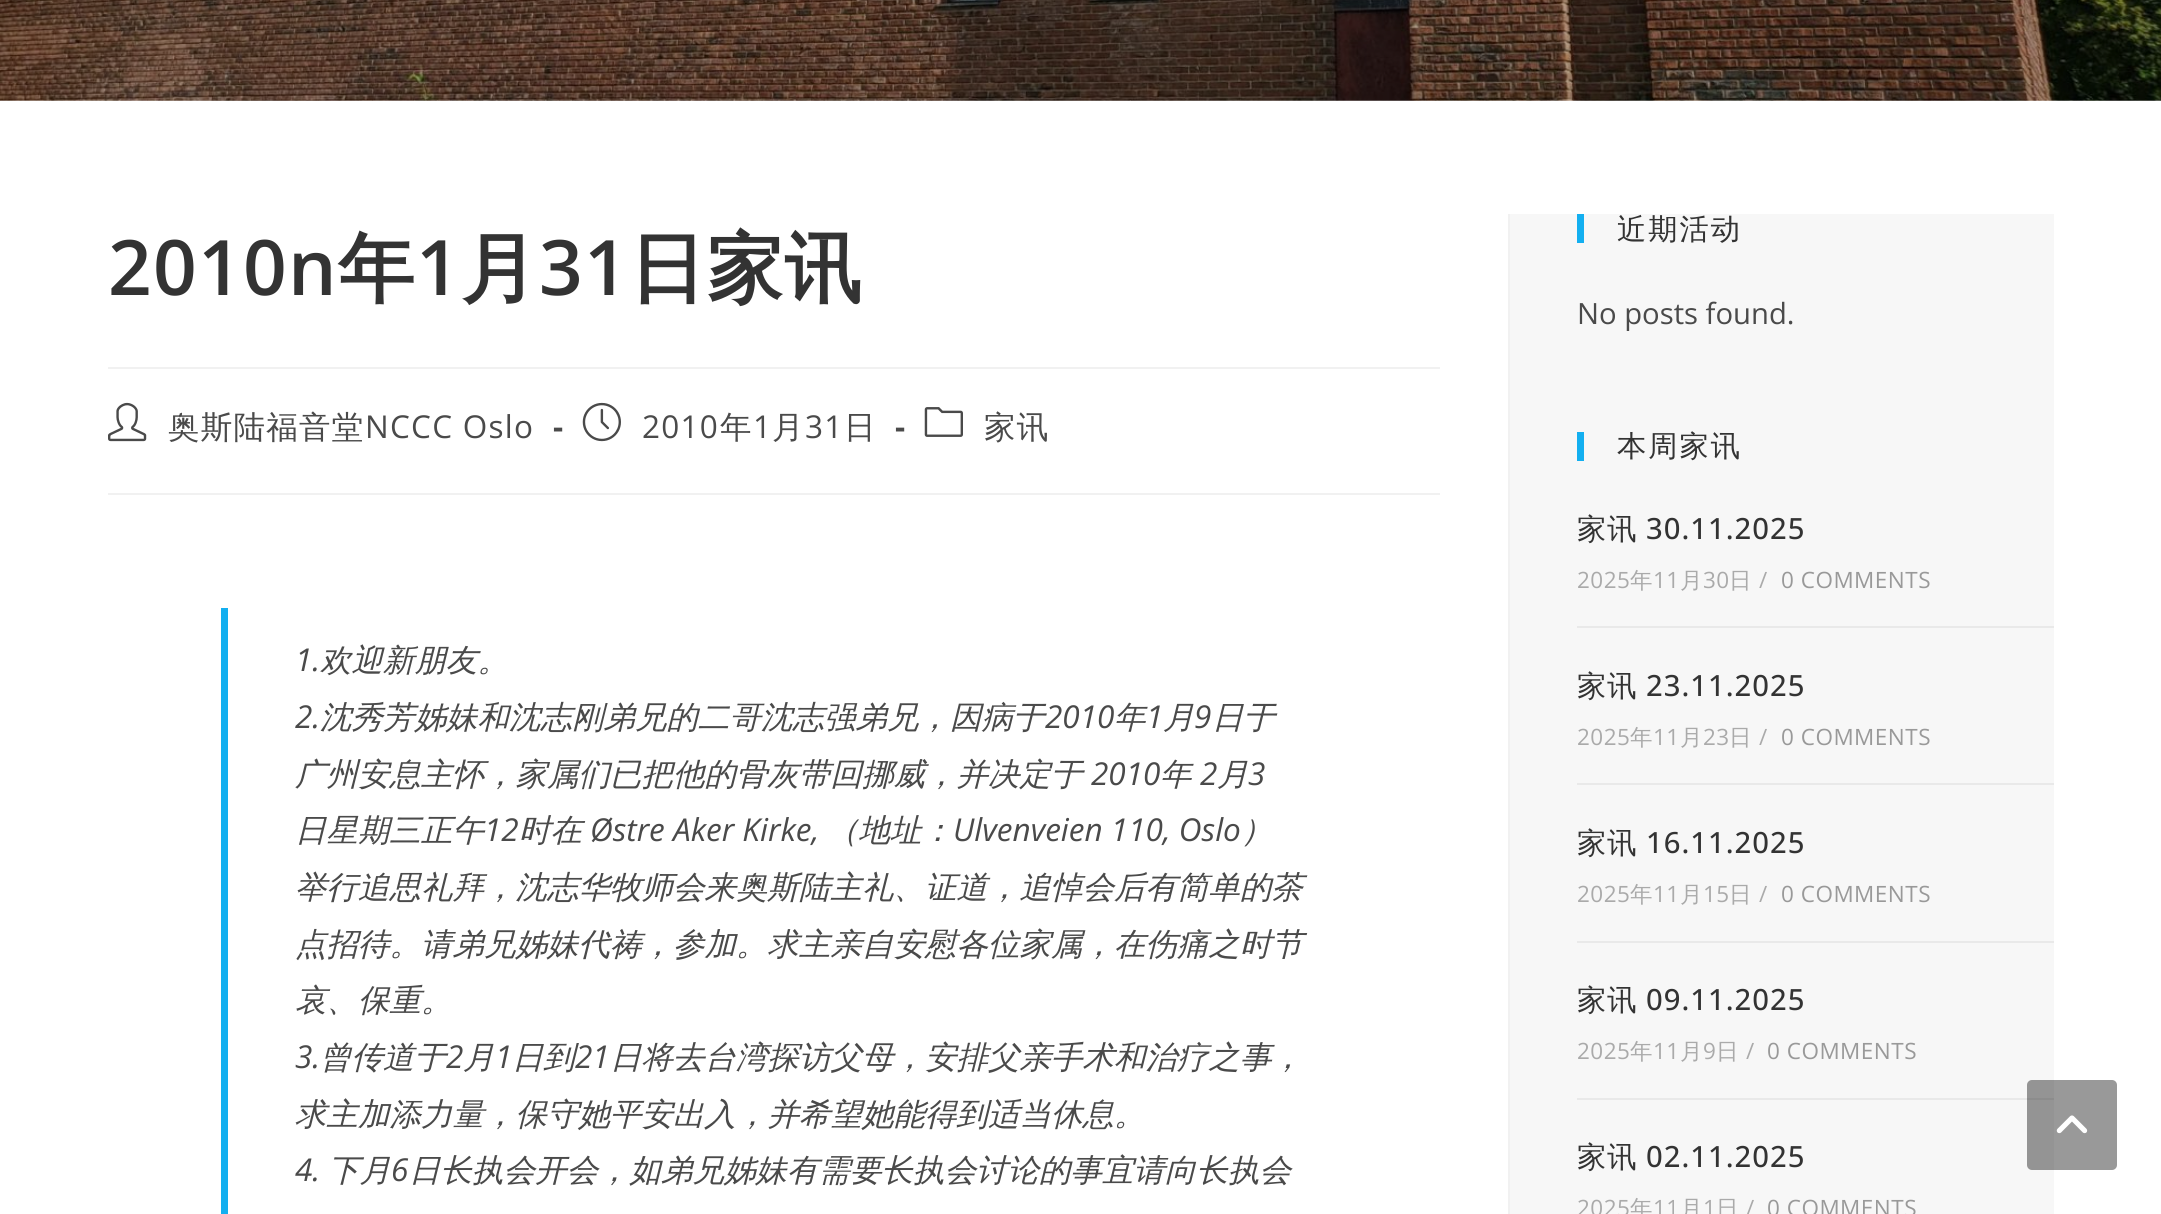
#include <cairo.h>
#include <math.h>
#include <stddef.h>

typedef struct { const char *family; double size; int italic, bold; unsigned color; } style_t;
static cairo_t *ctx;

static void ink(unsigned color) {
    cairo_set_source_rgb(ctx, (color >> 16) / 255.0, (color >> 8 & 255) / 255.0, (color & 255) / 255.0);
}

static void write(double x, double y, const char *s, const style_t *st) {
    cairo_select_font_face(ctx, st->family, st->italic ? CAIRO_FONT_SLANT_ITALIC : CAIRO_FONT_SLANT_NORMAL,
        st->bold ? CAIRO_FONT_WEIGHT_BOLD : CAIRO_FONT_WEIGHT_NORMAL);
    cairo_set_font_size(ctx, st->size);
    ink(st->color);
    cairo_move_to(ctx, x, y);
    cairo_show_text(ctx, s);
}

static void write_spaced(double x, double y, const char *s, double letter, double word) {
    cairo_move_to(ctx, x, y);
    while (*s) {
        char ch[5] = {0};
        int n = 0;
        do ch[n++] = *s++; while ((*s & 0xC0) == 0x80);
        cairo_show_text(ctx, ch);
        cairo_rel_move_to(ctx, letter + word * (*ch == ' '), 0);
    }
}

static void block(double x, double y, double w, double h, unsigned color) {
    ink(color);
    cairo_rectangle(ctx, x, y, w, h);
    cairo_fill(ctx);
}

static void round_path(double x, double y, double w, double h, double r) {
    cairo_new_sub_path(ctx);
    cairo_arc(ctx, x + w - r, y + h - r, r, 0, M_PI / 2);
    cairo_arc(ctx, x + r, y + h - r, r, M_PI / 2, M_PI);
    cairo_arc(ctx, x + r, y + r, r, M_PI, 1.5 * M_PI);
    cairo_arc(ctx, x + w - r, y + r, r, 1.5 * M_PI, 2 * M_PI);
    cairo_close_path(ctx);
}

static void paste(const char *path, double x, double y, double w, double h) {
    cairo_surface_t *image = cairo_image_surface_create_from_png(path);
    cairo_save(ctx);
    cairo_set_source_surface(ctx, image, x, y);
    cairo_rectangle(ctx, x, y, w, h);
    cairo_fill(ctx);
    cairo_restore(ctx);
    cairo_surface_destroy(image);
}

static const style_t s1 = {"Open Sans", 31.5, 1, 0, 0x4a4a4a};
static const style_t s2 = {"WenQuanYi Zen Hei Medium", 31.5, 1, 0, 0x4a4a4a};
static const style_t s3 = {"Open Sans", 29.25, 0, 0, 0x4a4a4a};

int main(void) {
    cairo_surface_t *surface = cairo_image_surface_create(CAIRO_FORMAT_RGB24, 2161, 1214);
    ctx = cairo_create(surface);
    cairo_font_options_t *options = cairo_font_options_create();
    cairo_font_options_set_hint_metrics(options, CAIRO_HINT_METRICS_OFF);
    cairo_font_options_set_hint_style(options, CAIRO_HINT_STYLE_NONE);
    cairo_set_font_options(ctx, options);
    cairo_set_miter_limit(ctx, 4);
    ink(0xffffff);
    cairo_paint(ctx);
    paste("pic1.png", 0, 0, 2161, 101);
    block(1508, 214, 2, 1000, 0xf1f1f1);
    block(108, 367, 1332, 2, 0xf1f1f1);
    cairo_select_font_face(ctx, "Open Sans SemiBold", CAIRO_FONT_SLANT_NORMAL, CAIRO_FONT_WEIGHT_NORMAL);
    cairo_set_font_size(ctx, 76.5);
    ink(0x333333);
    write_spaced(108, 295, "2010n", 1.25, 0);
    cairo_select_font_face(ctx, "WenQuanYi Zen Hei", CAIRO_FONT_SLANT_NORMAL, CAIRO_FONT_WEIGHT_BOLD);
    write_spaced(338, 295, "年", 1.25, 0);
    cairo_select_font_face(ctx, "Open Sans SemiBold", CAIRO_FONT_SLANT_NORMAL, CAIRO_FONT_WEIGHT_NORMAL);
    write_spaced(416, 295, "1", 1.25, 0);
    cairo_select_font_face(ctx, "WenQuanYi Zen Hei", CAIRO_FONT_SLANT_NORMAL, CAIRO_FONT_WEIGHT_BOLD);
    write_spaced(461, 295, "月", 1.25, 0);
    cairo_select_font_face(ctx, "Open Sans SemiBold", CAIRO_FONT_SLANT_NORMAL, CAIRO_FONT_WEIGHT_NORMAL);
    write_spaced(539, 295, "31", 1.25, 0);
    cairo_select_font_face(ctx, "WenQuanYi Zen Hei", CAIRO_FONT_SLANT_NORMAL, CAIRO_FONT_WEIGHT_BOLD);
    write_spaced(629, 295, "日家讯", 1.25, 0);
    block(108, 493, 1332, 2, 0xf1f1f1);
    paste("pic2.png", 108, 402, 39, 40);
    cairo_select_font_face(ctx, "WenQuanYi Zen Hei Medium", CAIRO_FONT_SLANT_NORMAL, CAIRO_FONT_WEIGHT_NORMAL);
    cairo_set_font_size(ctx, 31.5);
    ink(0x4a4a4a);
    write_spaced(168, 438, "奥斯陆福音堂", 1.25, 0);
    cairo_select_font_face(ctx, "Open Sans", CAIRO_FONT_SLANT_NORMAL, CAIRO_FONT_WEIGHT_NORMAL);
    write_spaced(365, 438, "NCCC Oslo", 1.25, 0);
    cairo_select_font_face(ctx, "Open Sans", CAIRO_FONT_SLANT_NORMAL, CAIRO_FONT_WEIGHT_BOLD);
    write_spaced(553, 438, "-", 1.25, 0);
    paste("pic3.png", 582, 402, 39, 40);
    cairo_select_font_face(ctx, "Open Sans", CAIRO_FONT_SLANT_NORMAL, CAIRO_FONT_WEIGHT_NORMAL);
    write_spaced(642, 438, "2010", 1.25, 0);
    cairo_select_font_face(ctx, "WenQuanYi Zen Hei Medium", CAIRO_FONT_SLANT_NORMAL, CAIRO_FONT_WEIGHT_NORMAL);
    write_spaced(720, 438, "年", 1.25, 0);
    cairo_select_font_face(ctx, "Open Sans", CAIRO_FONT_SLANT_NORMAL, CAIRO_FONT_WEIGHT_NORMAL);
    write_spaced(753, 438, "1", 1.25, 0);
    cairo_select_font_face(ctx, "WenQuanYi Zen Hei Medium", CAIRO_FONT_SLANT_NORMAL, CAIRO_FONT_WEIGHT_NORMAL);
    write_spaced(772, 438, "月", 1.25, 0);
    cairo_select_font_face(ctx, "Open Sans", CAIRO_FONT_SLANT_NORMAL, CAIRO_FONT_WEIGHT_NORMAL);
    write_spaced(805, 438, "31", 1.25, 0);
    cairo_select_font_face(ctx, "WenQuanYi Zen Hei Medium", CAIRO_FONT_SLANT_NORMAL, CAIRO_FONT_WEIGHT_NORMAL);
    write_spaced(844, 438, "日", 1.25, 0);
    cairo_select_font_face(ctx, "Open Sans", CAIRO_FONT_SLANT_NORMAL, CAIRO_FONT_WEIGHT_BOLD);
    write_spaced(895, 438, "-", 1.25, 0);
    paste("pic4.png", 924, 407, 39, 30);
    cairo_select_font_face(ctx, "WenQuanYi Zen Hei Medium", CAIRO_FONT_SLANT_NORMAL, CAIRO_FONT_WEIGHT_NORMAL);
    write_spaced(984, 438, "家讯", 1.25, 0);
    block(221, 608, 7, 606, 0x13aff0);
    write(295, 671, "1.", &s1);
    write(320, 671, "欢迎新朋友。", &s2);
    write(295, 728, "2.", &s1);
    write(320, 728, "沈秀芳姊妹和沈志刚弟兄的二哥沈志强弟兄，因病于", &s2);
    write(1045, 728, "2010", &s1);
    write(1114, 728, "年", &s2);
    write(1146, 728, "1", &s1);
    write(1163, 728, "月", &s2);
    write(1194, 728, "9", &s1);
    write(1212, 728, "日于", &s2);
    write(295, 785, "广州安息主怀，家属们已把他的骨灰带回挪威，并决定于", &s2);
    write(1091, 785, "2010", &s1);
    write(1160, 785, "年", &s2);
    write(1200, 785, "2", &s1);
    write(1217, 785, "月", &s2);
    write(1248, 785, "3", &s1);
    write(295, 841, "日星期三正午", &s2);
    write(484, 841, "12", &s1);
    write(519, 841, "时在", &s2);
    write(590, 841, "Østre Aker Kirke,", &s1);
    write(827, 841, "（地址：", &s2);
    write(953, 841, "Ulvenveien 110, Oslo", &s1);
    write(1241, 841, "）", &s2);
    write(295, 898, "举行追思礼拜，沈志华牧师会来奥斯陆主礼、证道，追悼会后有简单的茶", &s2);
    write(295, 955, "点招待。请弟兄姊妹代祷，参加。求主亲自安慰各位家属，在伤痛之时节", &s2);
    write(295, 1011, "哀、保重。", &s2);
    write(295, 1068, "3.", &s1);
    write(320, 1068, "曾传道于", &s2);
    write(446, 1068, "2", &s1);
    write(463, 1068, "月", &s2);
    write(495, 1068, "1", &s1);
    write(512, 1068, "日到", &s2);
    write(575, 1068, "21", &s1);
    write(610, 1068, "日将去台湾探访父母，安排父亲手术和治疗之事，", &s2);
    write(295, 1125, "求主加添力量，保守她平安出入，并希望她能得到适当休息。", &s2);
    write(295, 1181, "4.", &s1);
    write(328, 1181, "下月", &s2);
    write(391, 1181, "6", &s1);
    write(409, 1181, "日长执会开会，如弟兄姊妹有需要长执会讨论的事宜请向长执会", &s2);
    block(1510, 214, 544, 1000, 0xf7f7f7);
    block(1577, 214, 7, 29, 0x13aff0);
    cairo_select_font_face(ctx, "WenQuanYi Zen Hei Medium", CAIRO_FONT_SLANT_NORMAL, CAIRO_FONT_WEIGHT_NORMAL);
    cairo_set_font_size(ctx, 29.25);
    ink(0x333333);
    write_spaced(1617, 239, "近期活动", 2, 0);
    write(1577, 324, "No posts found.", &s3);
    block(1577, 432, 7, 29, 0x13aff0);
    cairo_select_font_face(ctx, "WenQuanYi Zen Hei Medium", CAIRO_FONT_SLANT_NORMAL, CAIRO_FONT_WEIGHT_NORMAL);
    ink(0x333333);
    write_spaced(1617, 456, "本周家讯", 2, 0);
    write_spaced(1577, 539, "家讯", 1, 0);
    cairo_select_font_face(ctx, "Open Sans Medium", CAIRO_FONT_SLANT_NORMAL, CAIRO_FONT_WEIGHT_NORMAL);
    write_spaced(1646, 539, "30.11.2025", 1, 0);
    cairo_select_font_face(ctx, "Open Sans", CAIRO_FONT_SLANT_NORMAL, CAIRO_FONT_WEIGHT_NORMAL);
    cairo_set_font_size(ctx, 22.5);
    ink(0xaaaaaa);
    write_spaced(1577, 588, "2025", 0.5, 0);
    cairo_select_font_face(ctx, "WenQuanYi Zen Hei Medium", CAIRO_FONT_SLANT_NORMAL, CAIRO_FONT_WEIGHT_NORMAL);
    write_spaced(1630, 588, "年", 0.5, 0);
    cairo_select_font_face(ctx, "Open Sans", CAIRO_FONT_SLANT_NORMAL, CAIRO_FONT_WEIGHT_NORMAL);
    write_spaced(1653, 588, "11", 0.5, 0);
    cairo_select_font_face(ctx, "WenQuanYi Zen Hei Medium", CAIRO_FONT_SLANT_NORMAL, CAIRO_FONT_WEIGHT_NORMAL);
    write_spaced(1680, 588, "月", 0.5, 0);
    cairo_select_font_face(ctx, "Open Sans", CAIRO_FONT_SLANT_NORMAL, CAIRO_FONT_WEIGHT_NORMAL);
    write_spaced(1703, 588, "30", 0.5, 0);
    cairo_select_font_face(ctx, "WenQuanYi Zen Hei Medium", CAIRO_FONT_SLANT_NORMAL, CAIRO_FONT_WEIGHT_NORMAL);
    write_spaced(1729, 588, "日", 0.5, 0);
    cairo_select_font_face(ctx, "Open Sans", CAIRO_FONT_SLANT_NORMAL, CAIRO_FONT_WEIGHT_NORMAL);
    write_spaced(1759, 588, "/", 0.5, 0);
    ink(0x999999);
    write_spaced(1781, 588, "0 COMMENTS", 0.5, 0);
    block(1577, 626, 477, 2, 0xe9e9e9);
    cairo_select_font_face(ctx, "WenQuanYi Zen Hei Medium", CAIRO_FONT_SLANT_NORMAL, CAIRO_FONT_WEIGHT_NORMAL);
    cairo_set_font_size(ctx, 29.25);
    ink(0x333333);
    write_spaced(1577, 696, "家讯", 1, 0);
    cairo_select_font_face(ctx, "Open Sans Medium", CAIRO_FONT_SLANT_NORMAL, CAIRO_FONT_WEIGHT_NORMAL);
    write_spaced(1646, 696, "23.11.2025", 1, 0);
    cairo_select_font_face(ctx, "Open Sans", CAIRO_FONT_SLANT_NORMAL, CAIRO_FONT_WEIGHT_NORMAL);
    cairo_set_font_size(ctx, 22.5);
    ink(0xaaaaaa);
    write_spaced(1577, 745, "2025", 0.5, 0);
    cairo_select_font_face(ctx, "WenQuanYi Zen Hei Medium", CAIRO_FONT_SLANT_NORMAL, CAIRO_FONT_WEIGHT_NORMAL);
    write_spaced(1630, 745, "年", 0.5, 0);
    cairo_select_font_face(ctx, "Open Sans", CAIRO_FONT_SLANT_NORMAL, CAIRO_FONT_WEIGHT_NORMAL);
    write_spaced(1653, 745, "11", 0.5, 0);
    cairo_select_font_face(ctx, "WenQuanYi Zen Hei Medium", CAIRO_FONT_SLANT_NORMAL, CAIRO_FONT_WEIGHT_NORMAL);
    write_spaced(1680, 745, "月", 0.5, 0);
    cairo_select_font_face(ctx, "Open Sans", CAIRO_FONT_SLANT_NORMAL, CAIRO_FONT_WEIGHT_NORMAL);
    write_spaced(1703, 745, "23", 0.5, 0);
    cairo_select_font_face(ctx, "WenQuanYi Zen Hei Medium", CAIRO_FONT_SLANT_NORMAL, CAIRO_FONT_WEIGHT_NORMAL);
    write_spaced(1729, 745, "日", 0.5, 0);
    cairo_select_font_face(ctx, "Open Sans", CAIRO_FONT_SLANT_NORMAL, CAIRO_FONT_WEIGHT_NORMAL);
    write_spaced(1759, 745, "/", 0.5, 0);
    ink(0x999999);
    write_spaced(1781, 745, "0 COMMENTS", 0.5, 0);
    block(1577, 783, 477, 2, 0xe9e9e9);
    cairo_select_font_face(ctx, "WenQuanYi Zen Hei Medium", CAIRO_FONT_SLANT_NORMAL, CAIRO_FONT_WEIGHT_NORMAL);
    cairo_set_font_size(ctx, 29.25);
    ink(0x333333);
    write_spaced(1577, 853, "家讯", 1, 0);
    cairo_select_font_face(ctx, "Open Sans Medium", CAIRO_FONT_SLANT_NORMAL, CAIRO_FONT_WEIGHT_NORMAL);
    write_spaced(1646, 853, "16.11.2025", 1, 0);
    cairo_select_font_face(ctx, "Open Sans", CAIRO_FONT_SLANT_NORMAL, CAIRO_FONT_WEIGHT_NORMAL);
    cairo_set_font_size(ctx, 22.5);
    ink(0xaaaaaa);
    write_spaced(1577, 902, "2025", 0.5, 0);
    cairo_select_font_face(ctx, "WenQuanYi Zen Hei Medium", CAIRO_FONT_SLANT_NORMAL, CAIRO_FONT_WEIGHT_NORMAL);
    write_spaced(1630, 902, "年", 0.5, 0);
    cairo_select_font_face(ctx, "Open Sans", CAIRO_FONT_SLANT_NORMAL, CAIRO_FONT_WEIGHT_NORMAL);
    write_spaced(1653, 902, "11", 0.5, 0);
    cairo_select_font_face(ctx, "WenQuanYi Zen Hei Medium", CAIRO_FONT_SLANT_NORMAL, CAIRO_FONT_WEIGHT_NORMAL);
    write_spaced(1680, 902, "月", 0.5, 0);
    cairo_select_font_face(ctx, "Open Sans", CAIRO_FONT_SLANT_NORMAL, CAIRO_FONT_WEIGHT_NORMAL);
    write_spaced(1703, 902, "15", 0.5, 0);
    cairo_select_font_face(ctx, "WenQuanYi Zen Hei Medium", CAIRO_FONT_SLANT_NORMAL, CAIRO_FONT_WEIGHT_NORMAL);
    write_spaced(1729, 902, "日", 0.5, 0);
    cairo_select_font_face(ctx, "Open Sans", CAIRO_FONT_SLANT_NORMAL, CAIRO_FONT_WEIGHT_NORMAL);
    write_spaced(1759, 902, "/", 0.5, 0);
    ink(0x999999);
    write_spaced(1781, 902, "0 COMMENTS", 0.5, 0);
    block(1577, 941, 477, 2, 0xe9e9e9);
    cairo_select_font_face(ctx, "WenQuanYi Zen Hei Medium", CAIRO_FONT_SLANT_NORMAL, CAIRO_FONT_WEIGHT_NORMAL);
    cairo_set_font_size(ctx, 29.25);
    ink(0x333333);
    write_spaced(1577, 1010, "家讯", 1, 0);
    cairo_select_font_face(ctx, "Open Sans Medium", CAIRO_FONT_SLANT_NORMAL, CAIRO_FONT_WEIGHT_NORMAL);
    write_spaced(1646, 1010, "09.11.2025", 1, 0);
    cairo_select_font_face(ctx, "Open Sans", CAIRO_FONT_SLANT_NORMAL, CAIRO_FONT_WEIGHT_NORMAL);
    cairo_set_font_size(ctx, 22.5);
    ink(0xaaaaaa);
    write_spaced(1577, 1059, "2025", 0.5, 0);
    cairo_select_font_face(ctx, "WenQuanYi Zen Hei Medium", CAIRO_FONT_SLANT_NORMAL, CAIRO_FONT_WEIGHT_NORMAL);
    write_spaced(1630, 1059, "年", 0.5, 0);
    cairo_select_font_face(ctx, "Open Sans", CAIRO_FONT_SLANT_NORMAL, CAIRO_FONT_WEIGHT_NORMAL);
    write_spaced(1653, 1059, "11", 0.5, 0);
    cairo_select_font_face(ctx, "WenQuanYi Zen Hei Medium", CAIRO_FONT_SLANT_NORMAL, CAIRO_FONT_WEIGHT_NORMAL);
    write_spaced(1680, 1059, "月", 0.5, 0);
    cairo_select_font_face(ctx, "Open Sans", CAIRO_FONT_SLANT_NORMAL, CAIRO_FONT_WEIGHT_NORMAL);
    write_spaced(1703, 1059, "9", 0.5, 0);
    cairo_select_font_face(ctx, "WenQuanYi Zen Hei Medium", CAIRO_FONT_SLANT_NORMAL, CAIRO_FONT_WEIGHT_NORMAL);
    write_spaced(1716, 1059, "日", 0.5, 0);
    cairo_select_font_face(ctx, "Open Sans", CAIRO_FONT_SLANT_NORMAL, CAIRO_FONT_WEIGHT_NORMAL);
    write_spaced(1746, 1059, "/", 0.5, 0);
    ink(0x999999);
    write_spaced(1767, 1059, "0 COMMENTS", 0.5, 0);
    block(1577, 1098, 477, 2, 0xe9e9e9);
    cairo_select_font_face(ctx, "WenQuanYi Zen Hei Medium", CAIRO_FONT_SLANT_NORMAL, CAIRO_FONT_WEIGHT_NORMAL);
    cairo_set_font_size(ctx, 29.25);
    ink(0x333333);
    write_spaced(1577, 1167, "家讯", 1, 0);
    cairo_select_font_face(ctx, "Open Sans Medium", CAIRO_FONT_SLANT_NORMAL, CAIRO_FONT_WEIGHT_NORMAL);
    write_spaced(1646, 1167, "02.11.2025", 1, 0);
    cairo_select_font_face(ctx, "Open Sans", CAIRO_FONT_SLANT_NORMAL, CAIRO_FONT_WEIGHT_NORMAL);
    cairo_set_font_size(ctx, 22.5);
    ink(0xaaaaaa);
    write_spaced(1577, 1216, "2025", 0.5, 0);
    cairo_select_font_face(ctx, "WenQuanYi Zen Hei Medium", CAIRO_FONT_SLANT_NORMAL, CAIRO_FONT_WEIGHT_NORMAL);
    write_spaced(1630, 1216, "年", 0.5, 0);
    cairo_select_font_face(ctx, "Open Sans", CAIRO_FONT_SLANT_NORMAL, CAIRO_FONT_WEIGHT_NORMAL);
    write_spaced(1653, 1216, "11", 0.5, 0);
    cairo_select_font_face(ctx, "WenQuanYi Zen Hei Medium", CAIRO_FONT_SLANT_NORMAL, CAIRO_FONT_WEIGHT_NORMAL);
    write_spaced(1680, 1216, "月", 0.5, 0);
    cairo_select_font_face(ctx, "Open Sans", CAIRO_FONT_SLANT_NORMAL, CAIRO_FONT_WEIGHT_NORMAL);
    write_spaced(1703, 1216, "1", 0.5, 0);
    cairo_select_font_face(ctx, "WenQuanYi Zen Hei Medium", CAIRO_FONT_SLANT_NORMAL, CAIRO_FONT_WEIGHT_NORMAL);
    write_spaced(1716, 1216, "日", 0.5, 0);
    cairo_select_font_face(ctx, "Open Sans", CAIRO_FONT_SLANT_NORMAL, CAIRO_FONT_WEIGHT_NORMAL);
    write_spaced(1746, 1216, "/", 0.5, 0);
    ink(0x999999);
    write_spaced(1767, 1216, "0 COMMENTS", 0.5, 0);
    cairo_set_source_rgba(ctx, 0, 0, 0, 0.4);
    round_path(2027, 1080, 90, 90, 5);
    cairo_fill(ctx);
    paste("pic5.png", 2056, 1115, 32, 19);
    cairo_surface_write_to_png(surface, "screenshot.png");
    cairo_font_options_destroy(options);
    cairo_destroy(ctx);
    cairo_surface_destroy(surface);
    return 0;
}
